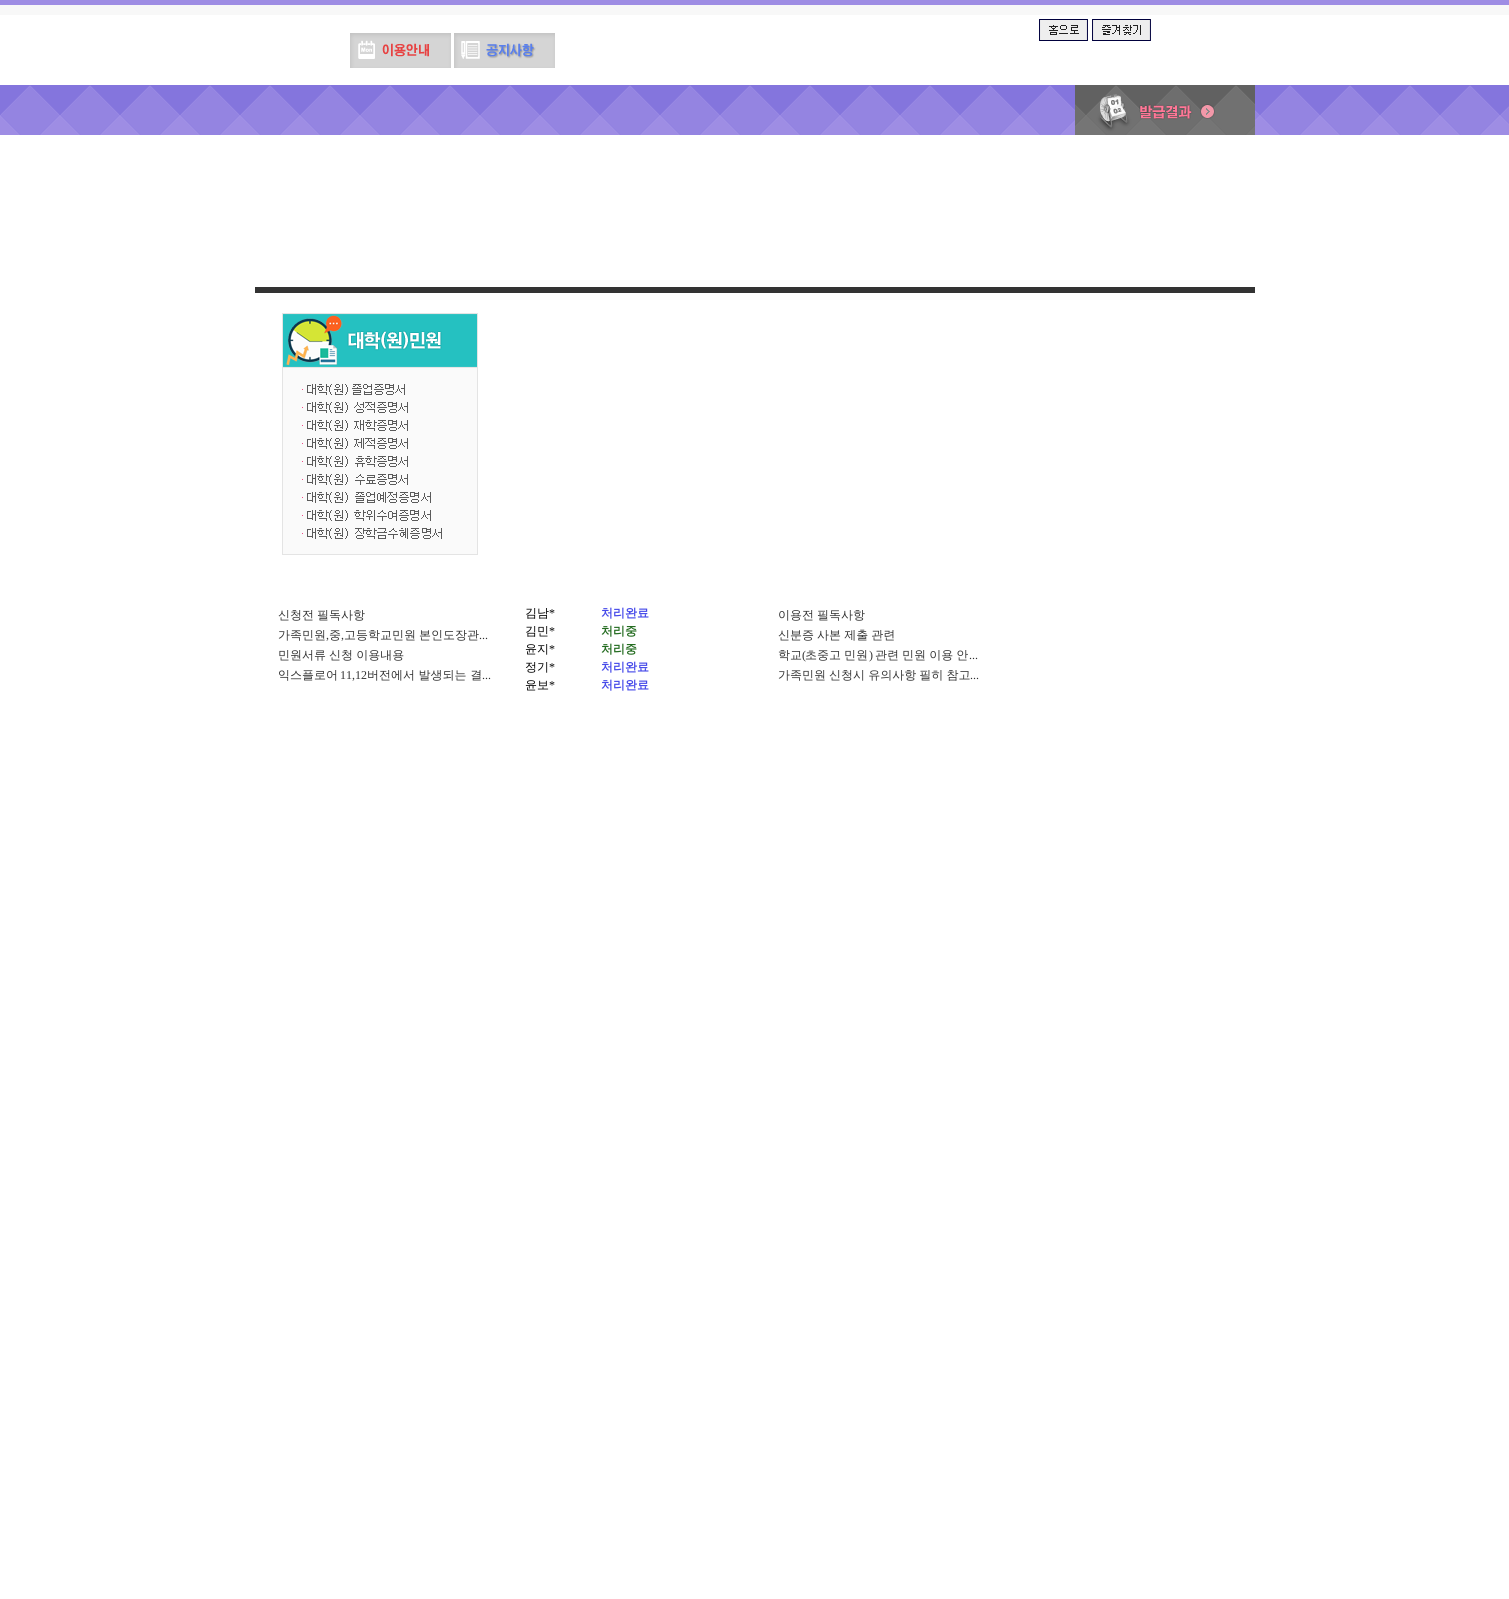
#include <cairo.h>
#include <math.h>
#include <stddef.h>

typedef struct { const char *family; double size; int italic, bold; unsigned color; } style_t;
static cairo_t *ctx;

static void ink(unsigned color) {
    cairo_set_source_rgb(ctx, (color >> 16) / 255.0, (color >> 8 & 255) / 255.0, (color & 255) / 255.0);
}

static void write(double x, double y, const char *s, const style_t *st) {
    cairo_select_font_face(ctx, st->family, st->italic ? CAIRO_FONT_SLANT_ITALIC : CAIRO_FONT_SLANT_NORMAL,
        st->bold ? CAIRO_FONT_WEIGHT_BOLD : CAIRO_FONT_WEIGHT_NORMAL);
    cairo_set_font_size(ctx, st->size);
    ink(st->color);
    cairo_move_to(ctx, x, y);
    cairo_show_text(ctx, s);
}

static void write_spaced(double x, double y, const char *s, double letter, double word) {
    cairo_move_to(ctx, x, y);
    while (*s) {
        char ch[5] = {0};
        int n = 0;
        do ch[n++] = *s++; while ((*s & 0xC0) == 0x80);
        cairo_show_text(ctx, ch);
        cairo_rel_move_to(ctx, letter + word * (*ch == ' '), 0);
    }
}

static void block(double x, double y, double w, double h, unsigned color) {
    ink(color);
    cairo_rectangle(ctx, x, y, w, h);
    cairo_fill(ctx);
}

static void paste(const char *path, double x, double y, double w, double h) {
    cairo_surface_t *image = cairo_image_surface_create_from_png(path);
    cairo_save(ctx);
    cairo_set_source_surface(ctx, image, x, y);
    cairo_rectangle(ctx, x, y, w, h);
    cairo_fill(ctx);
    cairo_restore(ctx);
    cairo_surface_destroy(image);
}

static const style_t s1 = {"WenQuanYi Zen Hei Medium", 12, 0, 0, 0x333333};
static const style_t s2 = {"Liberation Serif", 12, 0, 0, 0x333333};
static const style_t s3 = {"WenQuanYi Zen Hei Medium", 12, 0, 0, 0x000000};
static const style_t s4 = {"Liberation Serif", 12, 0, 0, 0x000000};
static const style_t s5 = {"WenQuanYi Zen Hei", 12, 0, 1, 0x4549e9};
static const style_t s6 = {"WenQuanYi Zen Hei", 12, 0, 1, 0x246c20};

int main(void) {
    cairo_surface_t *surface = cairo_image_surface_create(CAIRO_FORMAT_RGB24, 1509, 1599);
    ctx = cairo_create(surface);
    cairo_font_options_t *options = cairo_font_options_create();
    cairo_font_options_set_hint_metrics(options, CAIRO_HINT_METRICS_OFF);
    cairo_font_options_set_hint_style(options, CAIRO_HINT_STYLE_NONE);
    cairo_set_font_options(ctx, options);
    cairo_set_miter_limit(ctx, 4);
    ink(0xffffff);
    cairo_paint(ctx);
    block(0, 0, 1509, 5, 0x9e8de4);
    block(0, 5, 1509, 10, 0xf8f8f8);
    paste("pic1.png", 1039, 19, 49, 22);
    paste("pic2.png", 1092, 19, 59, 22);
    paste("pic3.png", 350, 33, 101, 35);
    paste("pic4.png", 454, 33, 101, 35);
    paste("pic5.png", 0, 85, 1509, 50);
    paste("pic6.png", 1075, 85, 180, 50);
    block(255, 287, 1000, 6, 0x333333);
    paste("pic7.png", 282, 313, 196, 242);
    cairo_select_font_face(ctx, "WenQuanYi Zen Hei Medium", CAIRO_FONT_SLANT_NORMAL, CAIRO_FONT_WEIGHT_NORMAL);
    cairo_set_font_size(ctx, 12);
    write_spaced(278, 619, "신청전 필독사항", 0, -0.5);
    write(278, 639, "가족민원", &s1);
    write(326, 639, ",", &s2);
    write(329, 639, "중", &s1);
    write(341, 639, ",", &s2);
    cairo_select_font_face(ctx, "WenQuanYi Zen Hei Medium", CAIRO_FONT_SLANT_NORMAL, CAIRO_FONT_WEIGHT_NORMAL);
    write_spaced(344, 639, "고등학교민원 본인도장관", 0, -0.5);
    write(479, 639, "...", &s2);
    cairo_select_font_face(ctx, "WenQuanYi Zen Hei Medium", CAIRO_FONT_SLANT_NORMAL, CAIRO_FONT_WEIGHT_NORMAL);
    write_spaced(278, 659, "민원서류 신청 이용내용", 0, -0.5);
    write(278, 679, "익스플로어", &s1);
    write(340, 679, "11,12", &s2);
    write(367, 679, "버전에서 발생되는 결", &s1);
    write(482, 679, "...", &s2);
    write(525, 617, "김남", &s3);
    write(549, 617, "*", &s4);
    write(601, 617, "처리완료", &s5);
    write(525, 635, "김민", &s3);
    write(549, 635, "*", &s4);
    write(601, 635, "처리중", &s6);
    write(525, 653, "윤지", &s3);
    write(549, 653, "*", &s4);
    write(601, 653, "처리중", &s6);
    write(525, 671, "정기", &s3);
    write(549, 671, "*", &s4);
    write(601, 671, "처리완료", &s5);
    write(525, 689, "윤보", &s3);
    write(549, 689, "*", &s4);
    write(601, 689, "처리완료", &s5);
    cairo_select_font_face(ctx, "WenQuanYi Zen Hei Medium", CAIRO_FONT_SLANT_NORMAL, CAIRO_FONT_WEIGHT_NORMAL);
    ink(0x333333);
    write_spaced(778, 619, "이용전 필독사항", 0, -0.5);
    write_spaced(778, 639, "신분증 사본 제출 관련", 0, -0.5);
    write(778, 659, "학교", &s1);
    write(802, 659, "(", &s2);
    cairo_select_font_face(ctx, "WenQuanYi Zen Hei Medium", CAIRO_FONT_SLANT_NORMAL, CAIRO_FONT_WEIGHT_NORMAL);
    write_spaced(805, 659, "초중고 민원", 0, -0.5);
    write(869, 659, ")", &s2);
    cairo_select_font_face(ctx, "WenQuanYi Zen Hei Medium", CAIRO_FONT_SLANT_NORMAL, CAIRO_FONT_WEIGHT_NORMAL);
    write_spaced(875, 659, "관련 민원 이용 안", 0, -0.5);
    write(969, 659, "...", &s2);
    cairo_select_font_face(ctx, "WenQuanYi Zen Hei Medium", CAIRO_FONT_SLANT_NORMAL, CAIRO_FONT_WEIGHT_NORMAL);
    write_spaced(778, 679, "가족민원 신청시 유의사항 필히 참고", 0, -0.5);
    write(970, 679, "...", &s2);
    cairo_surface_write_to_png(surface, "screenshot.png");
    cairo_font_options_destroy(options);
    cairo_destroy(ctx);
    cairo_surface_destroy(surface);
    return 0;
}
